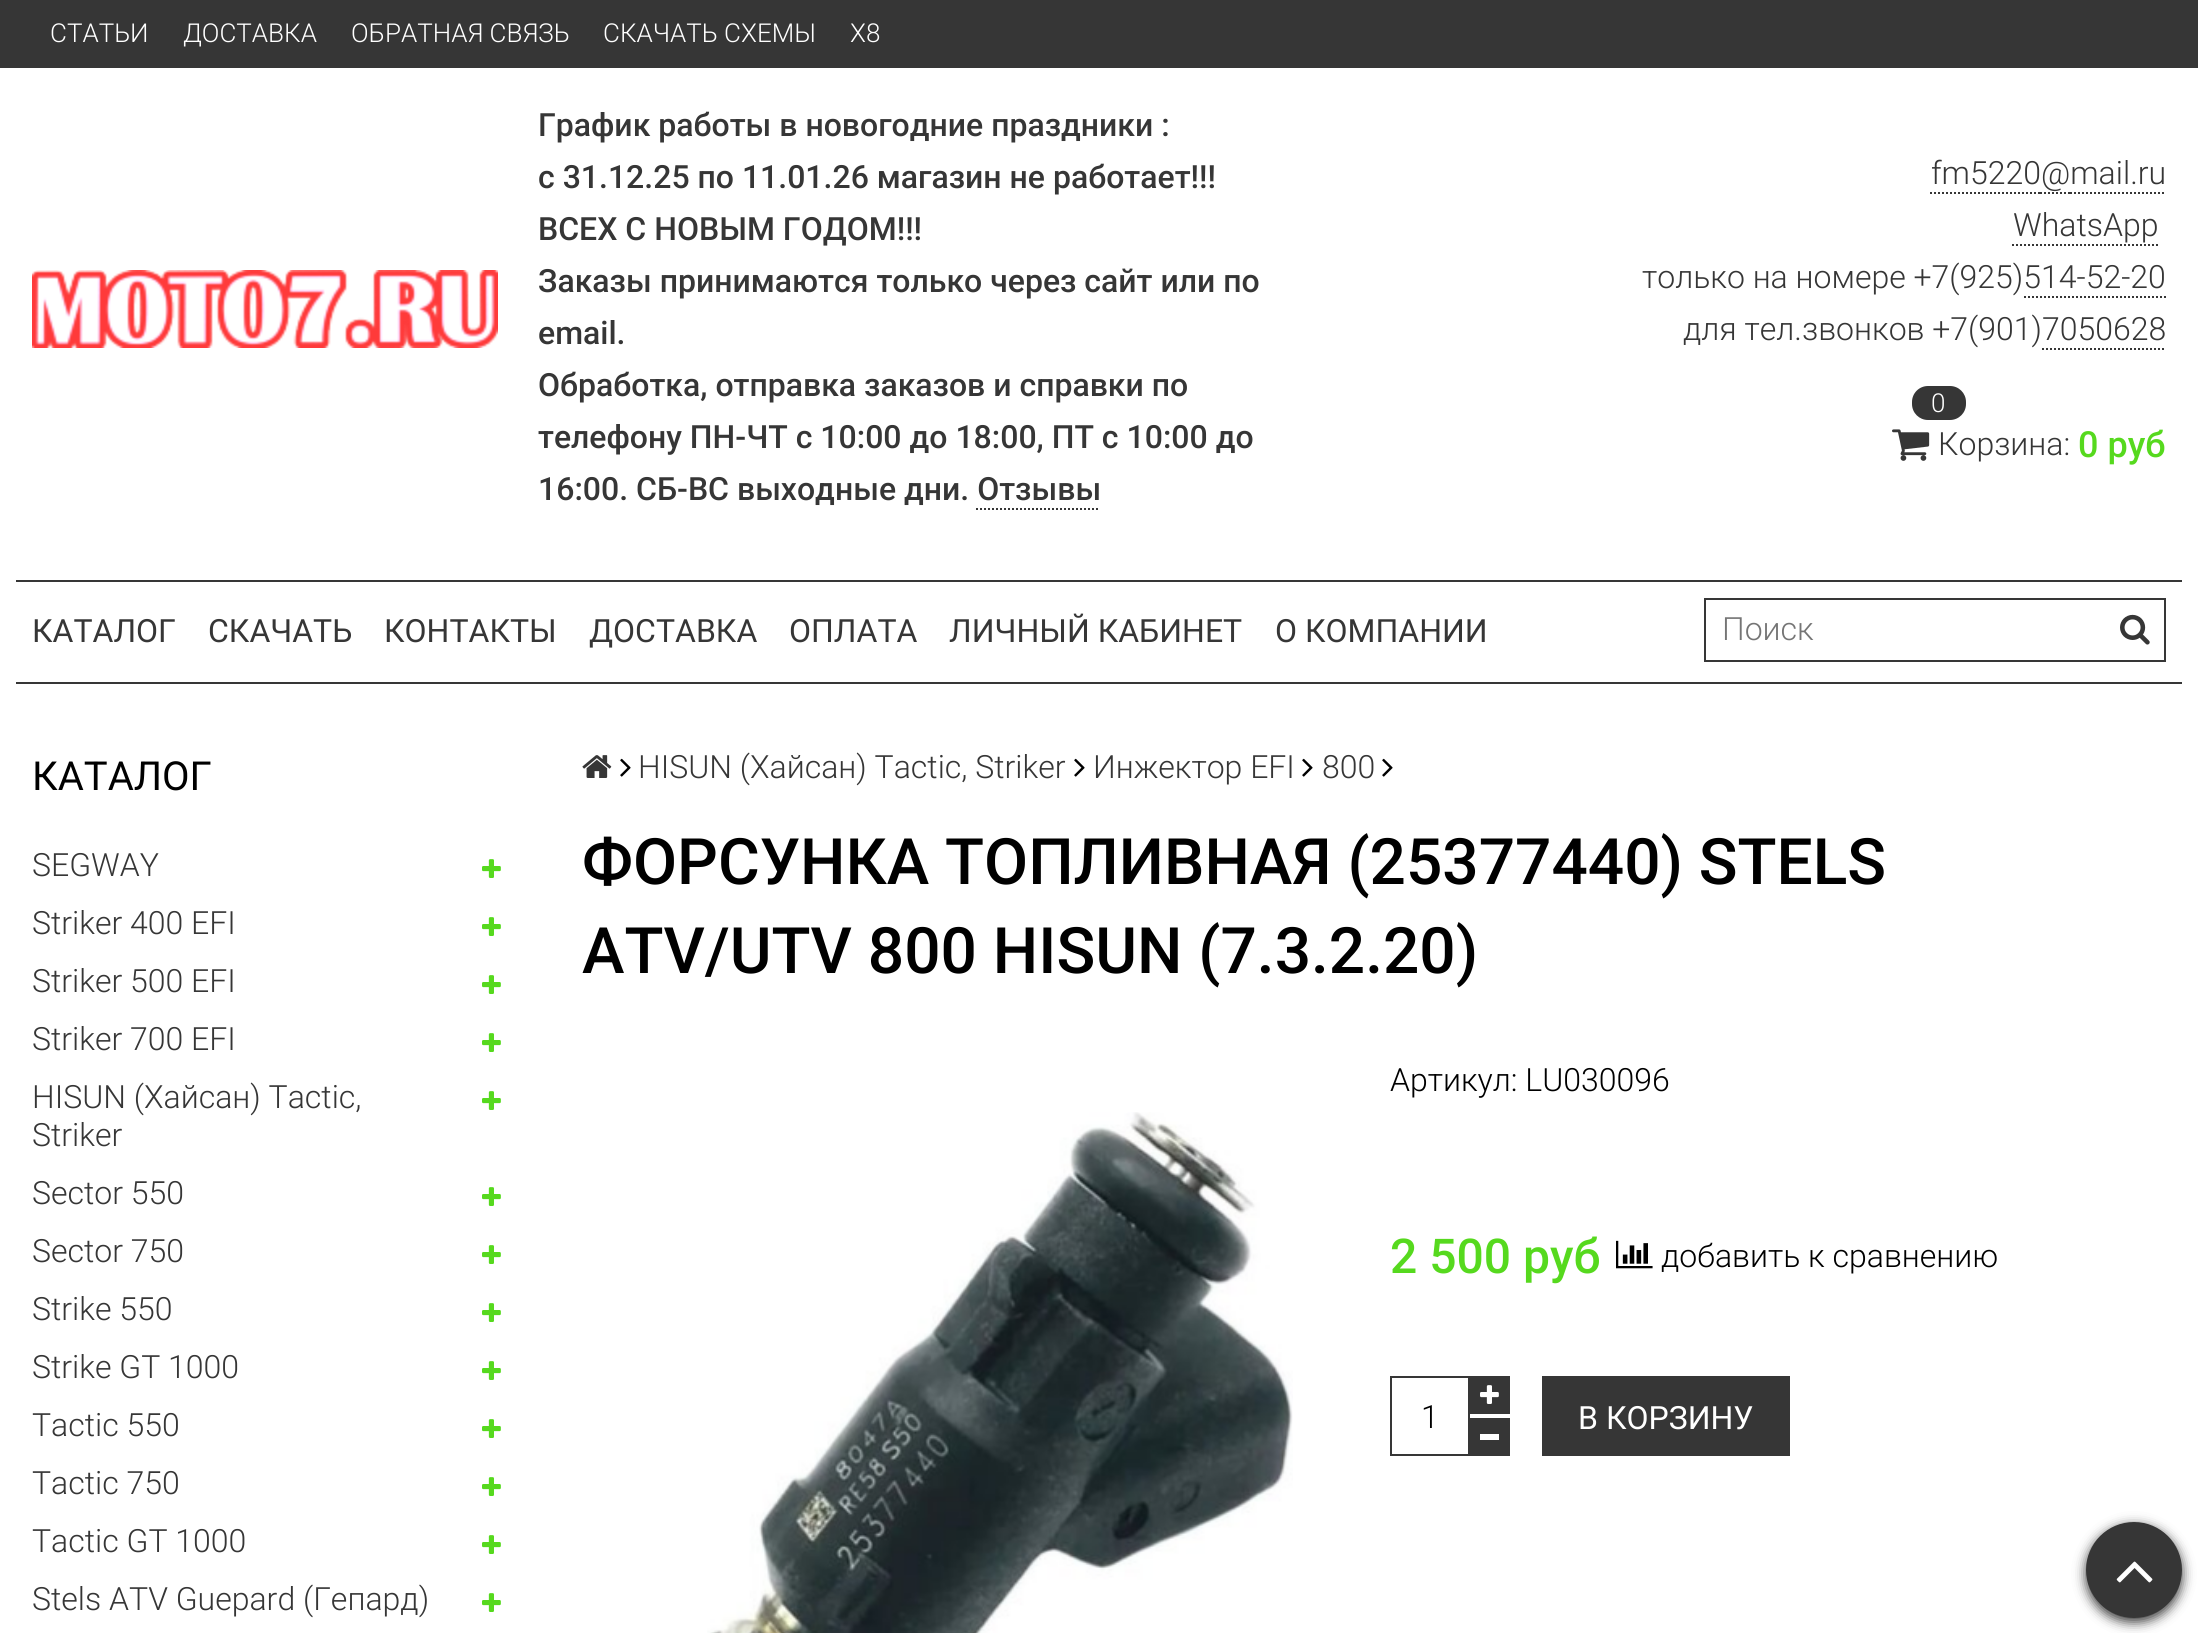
#include <cairo.h>
#include <math.h>
#include <stddef.h>

typedef struct { const char *family; double size; int italic, bold; unsigned color; } style_t;
static cairo_t *ctx;

static void ink(unsigned color) {
    cairo_set_source_rgb(ctx, (color >> 16) / 255.0, (color >> 8 & 255) / 255.0, (color & 255) / 255.0);
}

static void write(double x, double y, const char *s, const style_t *st) {
    cairo_select_font_face(ctx, st->family, st->italic ? CAIRO_FONT_SLANT_ITALIC : CAIRO_FONT_SLANT_NORMAL,
        st->bold ? CAIRO_FONT_WEIGHT_BOLD : CAIRO_FONT_WEIGHT_NORMAL);
    cairo_set_font_size(ctx, st->size);
    ink(st->color);
    cairo_move_to(ctx, x, y);
    cairo_show_text(ctx, s);
}

static void block(double x, double y, double w, double h, unsigned color) {
    ink(color);
    cairo_rectangle(ctx, x, y, w, h);
    cairo_fill(ctx);
}

static void round_path(double x, double y, double w, double h, double r) {
    cairo_new_sub_path(ctx);
    cairo_arc(ctx, x + w - r, y + h - r, r, 0, M_PI / 2);
    cairo_arc(ctx, x + r, y + h - r, r, M_PI / 2, M_PI);
    cairo_arc(ctx, x + r, y + r, r, M_PI, 1.5 * M_PI);
    cairo_arc(ctx, x + w - r, y + r, r, 1.5 * M_PI, 2 * M_PI);
    cairo_close_path(ctx);
}

static void blur_box(double x, double y, double w, double h, double r, double blur, double alpha) {
    cairo_push_group_with_content(ctx, CAIRO_CONTENT_ALPHA);
    cairo_set_operator(ctx, CAIRO_OPERATOR_SOURCE);
    for (int i = 15; i >= -15 && fmin(w, h) + blur * i / 3 > 0; i -= 2) {
        double e = blur * i / 6;
        cairo_set_source_rgba(ctx, 0, 0, 0, alpha * erfc((i - 1) / 8.5) / 2);
        round_path(x - e, y - e, w + 2 * e, h + 2 * e, fmax(0, fmin(r + e + blur * .6, fmin(w, h) / 2 + e)));
        cairo_fill(ctx);
    }
    cairo_pattern_t *soft = cairo_pop_group(ctx);
    cairo_mask(ctx, soft);
    cairo_pattern_destroy(soft);
}

static void paste(const char *path, double x, double y, double w, double h) {
    cairo_surface_t *image = cairo_image_surface_create_from_png(path);
    cairo_save(ctx);
    cairo_set_source_surface(ctx, image, x, y);
    cairo_rectangle(ctx, x, y, w, h);
    cairo_fill(ctx);
    cairo_restore(ctx);
    cairo_surface_destroy(image);
}

static const style_t s1 = {"Roboto Light", 26, 0, 0, 0xffffff};
static const style_t s2 = {"Roboto Medium", 32, 0, 0, 0x363636};
static const style_t s3 = {"Roboto Light", 32, 0, 0, 0x363636};
static const style_t s4 = {"Roboto Medium", 36, 0, 0, 0x56d91e};
static const style_t s5 = {"Roboto", 32, 0, 0, 0x363636};
static const style_t s6 = {"Roboto Light", 32, 0, 0, 0x757575};
static const style_t s7 = {"Roboto", 40, 0, 0, 0x000000};
static const style_t s8 = {"Roboto Medium", 64, 0, 0, 0x000000};
static const style_t s9 = {"Roboto Light", 32, 0, 0, 0x000000};
static const style_t s10 = {"Roboto Medium", 48, 0, 0, 0x56d91e};
static const style_t s11 = {"Roboto", 32, 0, 0, 0xffffff};

int main(void) {
    cairo_surface_t *surface = cairo_image_surface_create(CAIRO_FORMAT_RGB24, 2198, 1633);
    ctx = cairo_create(surface);
    cairo_font_options_t *options = cairo_font_options_create();
    cairo_font_options_set_hint_metrics(options, CAIRO_HINT_METRICS_OFF);
    cairo_font_options_set_hint_style(options, CAIRO_HINT_STYLE_NONE);
    cairo_set_font_options(ctx, options);
    cairo_set_miter_limit(ctx, 4);
    ink(0xffffff);
    cairo_paint(ctx);
    block(0, 0, 2198, 68, 0x363636);
    write(50, 42, "СТАТЬИ", &s1);
    write(183, 42, "ДОСТАВКА", &s1);
    write(351, 42, "ОБРАТНАЯ СВЯЗЬ", &s1);
    write(603, 42, "СКАЧАТЬ СХЕМЫ", &s1);
    write(850, 42, "X8", &s1);
    paste("pic1.png", 32, 270, 466, 78);
    write(538, 136, "График работы в новогодние праздники :", &s2);
    write(538, 188, "с 31.12.25 по 11.01.26 магазин не работает!!!", &s2);
    write(538, 240, "ВСЕХ С НОВЫМ ГОДОМ!!!", &s2);
    write(538, 292, "Заказы принимаются только через сайт или по", &s2);
    write(538, 344, "email.", &s2);
    write(538, 396, "Обработка, отправка заказов и справки по", &s2);
    write(538, 448, "телефону ПН-ЧТ с 10:00 до 18:00, ПТ с 10:00 до", &s2);
    write(538, 500, "16:00. СБ-ВС выходные дни. Отзывы", &s2);
    cairo_new_path(ctx);
    cairo_move_to(ctx, 976, 509);
    cairo_line_to(ctx, 1100, 509);
    cairo_set_dash(ctx, (double[]){2, 2}, 2, 0);
    cairo_stroke(ctx);
    write(1931, 184, "fm5220@mail.ru", &s3);
    cairo_new_path(ctx);
    cairo_move_to(ctx, 1930, 193);
    cairo_line_to(ctx, 2040, 193);
    cairo_stroke(ctx);
    cairo_new_path(ctx);
    cairo_move_to(ctx, 2040, 193);
    cairo_line_to(ctx, 2070, 193);
    cairo_stroke(ctx);
    cairo_new_path(ctx);
    cairo_move_to(ctx, 2070, 193);
    cairo_line_to(ctx, 2166, 193);
    cairo_stroke(ctx);
    write(2013, 236, "WhatsApp", &s3);
    cairo_new_path(ctx);
    cairo_move_to(ctx, 2012, 245);
    cairo_line_to(ctx, 2158, 245);
    cairo_stroke(ctx);
    write(1642, 288, "только на номере +7(925)514-52-20", &s3);
    cairo_new_path(ctx);
    cairo_move_to(ctx, 2024, 297);
    cairo_line_to(ctx, 2166, 297);
    cairo_stroke(ctx);
    write(1683, 340, "для тел.звонков +7(901)7050628", &s3);
    cairo_new_path(ctx);
    cairo_move_to(ctx, 2042, 349);
    cairo_line_to(ctx, 2166, 349);
    cairo_stroke(ctx);
    round_path(1912, 386, 54, 34, 16);
    cairo_fill(ctx);
    write(1931, 412, "0", &s1);
    paste("pic2.png", 1892, 429, 38, 32);
    write(1938, 455, "Корзина:", &s3);
    write(2078, 457, "0 руб", &s4);
    block(16, 580, 2166, 2, 0x363636);
    block(16, 682, 2166, 2, 0x363636);
    write(32, 642, "КАТАЛОГ", &s5);
    write(208, 642, "СКАЧАТЬ", &s5);
    write(384, 642, "КОНТАКТЫ", &s5);
    write(589, 642, "ДОСТАВКА", &s5);
    write(789, 642, "ОПЛАТА", &s5);
    write(949, 642, "ЛИЧНЫЙ КАБИНЕТ", &s5);
    write(1275, 642, "О КОМПАНИИ", &s5);
    cairo_rectangle(ctx, 1705, 599, 460, 62);
    cairo_set_dash(ctx, NULL, 0, 0);
    cairo_stroke(ctx);
    write(1722, 640, "Поиск", &s6);
    paste("pic3.png", 2120, 614, 30, 31);
    write(32, 790, "КАТАЛОГ", &s7);
    write(32, 876, "SEGWAY", &s3);
    paste("pic4.png", 482, 859, 19, 19);
    write(32, 934, "Striker 400 EFI", &s3);
    paste("pic4.png", 482, 917, 19, 19);
    write(32, 992, "Striker 500 EFI", &s3);
    paste("pic4.png", 482, 975, 19, 19);
    write(32, 1050, "Striker 700 EFI", &s3);
    paste("pic4.png", 482, 1033, 19, 19);
    write(32, 1108, "HISUN (Хайсан) Tactic,", &s3);
    write(32, 1146, "Striker", &s3);
    paste("pic4.png", 482, 1091, 19, 19);
    write(32, 1204, "Sector 550", &s3);
    paste("pic4.png", 482, 1187, 19, 19);
    write(32, 1262, "Sector 750", &s3);
    paste("pic4.png", 482, 1245, 19, 19);
    write(32, 1320, "Strike 550", &s3);
    paste("pic4.png", 482, 1303, 19, 19);
    write(32, 1378, "Strike GT 1000", &s3);
    paste("pic4.png", 482, 1361, 19, 19);
    write(32, 1436, "Tactic 550", &s3);
    paste("pic4.png", 482, 1419, 19, 19);
    write(32, 1494, "Tactic 750", &s3);
    paste("pic4.png", 482, 1477, 19, 19);
    write(32, 1552, "Tactic GT 1000", &s3);
    paste("pic4.png", 482, 1535, 19, 19);
    write(32, 1610, "Stels ATV Guepard (Гепард)", &s3);
    paste("pic4.png", 482, 1593, 19, 19);
    paste("pic5.png", 582, 755, 30, 23);
    paste("pic6.png", 620, 758, 11, 19);
    write(638, 778, "HISUN (Хайсан) Tactic, Striker", &s3);
    paste("pic6.png", 1074, 758, 11, 19);
    write(1093, 778, "Инжектор EFI", &s3);
    paste("pic6.png", 1302, 758, 11, 19);
    write(1322, 778, "800", &s3);
    paste("pic6.png", 1382, 758, 11, 19);
    write(582, 884, "ФОРСУНКА ТОПЛИВНАЯ (25377440) STELS", &s8);
    write(582, 973, "ATV/UTV 800 HISUN (7.3.2.20)", &s8);
    paste("pic7.png", 707, 1112, 586, 521);
    write(1390, 1091, "Артикул: LU030096", &s9);
    write(1390, 1273, "2 500 руб", &s10);
    paste("pic8.png", 1616, 1240, 37, 29);
    write(1661, 1267, "добавить к сравнению", &s9);
    block(1470, 1376, 40, 38, 0x363636);
    paste("pic9.png", 1480, 1385, 19, 19);
    cairo_rectangle(ctx, 1391, 1377, 78, 78);
    cairo_stroke(ctx);
    write(1421, 1428, "1", &s9);
    block(1470, 1418, 40, 38, 0x363636);
    block(1480, 1434, 19, 6, 0xffffff);
    block(1542, 1376, 248, 80, 0x363636);
    write(1578, 1429, "В КОРЗИНУ", &s11);
    ink(0x333333);
    blur_box(2086, 1526, 96, 96, 48, 6, 1);
    ink(0x363636);
    cairo_arc(ctx, 2134, 1570, 46, 0, 2 * M_PI);
    cairo_fill_preserve(ctx);
    cairo_set_line_width(ctx, 4);
    cairo_stroke(ctx);
    paste("pic10.png", 2116, 1561, 37, 22);
    cairo_surface_write_to_png(surface, "screenshot.png");
    cairo_font_options_destroy(options);
    cairo_destroy(ctx);
    cairo_surface_destroy(surface);
    return 0;
}
